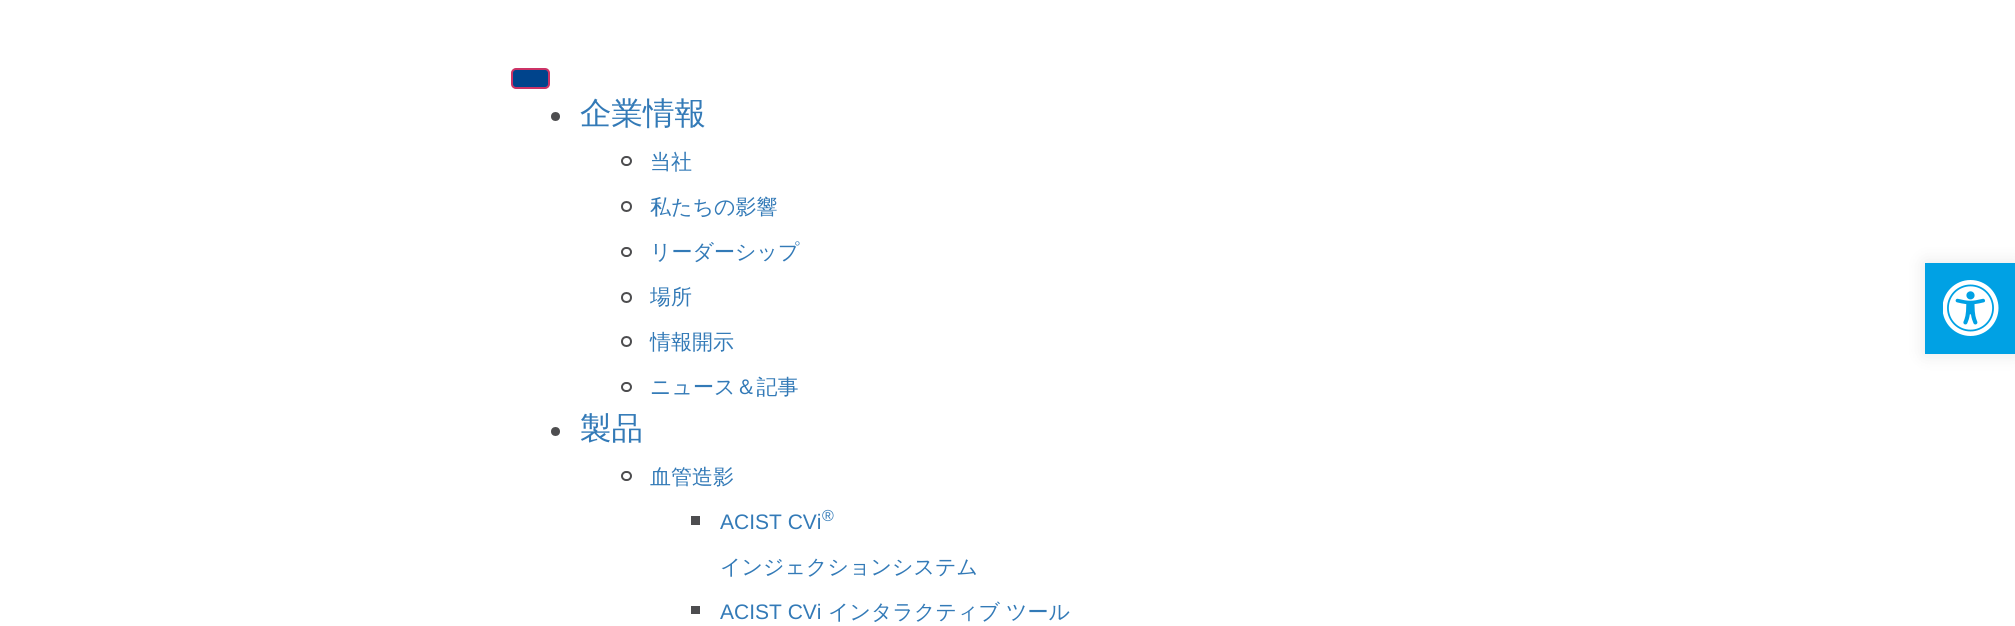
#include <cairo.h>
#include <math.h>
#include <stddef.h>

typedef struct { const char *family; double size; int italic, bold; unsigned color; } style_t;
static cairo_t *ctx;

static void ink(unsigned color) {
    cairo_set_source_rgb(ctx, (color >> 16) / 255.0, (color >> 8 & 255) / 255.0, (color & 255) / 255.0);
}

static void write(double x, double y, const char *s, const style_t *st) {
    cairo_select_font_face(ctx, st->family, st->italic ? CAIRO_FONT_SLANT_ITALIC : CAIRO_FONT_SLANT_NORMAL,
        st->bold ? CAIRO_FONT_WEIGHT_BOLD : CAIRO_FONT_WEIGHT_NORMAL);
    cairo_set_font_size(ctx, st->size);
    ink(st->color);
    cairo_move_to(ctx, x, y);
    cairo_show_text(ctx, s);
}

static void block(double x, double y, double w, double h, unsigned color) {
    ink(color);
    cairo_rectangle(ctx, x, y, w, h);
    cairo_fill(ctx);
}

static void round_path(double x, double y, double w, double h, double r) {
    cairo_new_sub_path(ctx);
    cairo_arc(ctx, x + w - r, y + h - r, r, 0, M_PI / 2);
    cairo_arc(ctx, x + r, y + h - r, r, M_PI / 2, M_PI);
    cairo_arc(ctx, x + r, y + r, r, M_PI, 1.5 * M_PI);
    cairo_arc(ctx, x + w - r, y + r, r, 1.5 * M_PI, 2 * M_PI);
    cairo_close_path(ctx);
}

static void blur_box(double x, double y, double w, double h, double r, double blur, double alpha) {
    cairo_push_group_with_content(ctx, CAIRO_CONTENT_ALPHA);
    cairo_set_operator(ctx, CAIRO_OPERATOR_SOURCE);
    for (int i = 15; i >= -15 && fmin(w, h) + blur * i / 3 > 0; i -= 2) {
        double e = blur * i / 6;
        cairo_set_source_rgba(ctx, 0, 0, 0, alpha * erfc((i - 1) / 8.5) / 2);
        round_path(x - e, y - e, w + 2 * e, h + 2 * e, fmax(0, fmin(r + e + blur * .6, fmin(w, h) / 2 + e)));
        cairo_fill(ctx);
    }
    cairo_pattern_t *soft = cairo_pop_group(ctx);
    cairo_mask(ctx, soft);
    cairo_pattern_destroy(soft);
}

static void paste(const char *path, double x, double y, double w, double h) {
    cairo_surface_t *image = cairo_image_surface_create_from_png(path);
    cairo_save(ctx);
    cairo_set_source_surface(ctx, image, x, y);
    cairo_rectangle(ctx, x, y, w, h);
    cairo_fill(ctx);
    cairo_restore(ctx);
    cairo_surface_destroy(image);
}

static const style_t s1 = {"WenQuanYi Zen Hei Medium", 31.5, 0, 0, 0x337ab7};
static const style_t s2 = {"WenQuanYi Zen Hei Medium", 21, 0, 0, 0x337ab7};
static const style_t s3 = {"Liberation Sans", 21, 0, 0, 0x337ab7};
static const style_t s4 = {"Liberation Sans", 16, 0, 0, 0x337ab7};

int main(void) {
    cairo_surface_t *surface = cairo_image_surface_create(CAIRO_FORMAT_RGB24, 2015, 626);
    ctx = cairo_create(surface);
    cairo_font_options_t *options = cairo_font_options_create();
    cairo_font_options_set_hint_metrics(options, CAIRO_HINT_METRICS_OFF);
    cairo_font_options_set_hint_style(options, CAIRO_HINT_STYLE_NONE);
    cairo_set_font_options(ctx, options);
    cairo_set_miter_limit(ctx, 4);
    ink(0xffffff);
    cairo_paint(ctx);
    ink(0x00448c);
    round_path(512, 69, 37, 19, 4);
    cairo_fill_preserve(ctx);
    ink(0xcc3366);
    cairo_stroke(ctx);
    ink(0x4d4d4f);
    cairo_arc(ctx, 555.5, 116.5, 4.5, 0, 2 * M_PI);
    cairo_fill(ctx);
    write(580, 124, "企業情報", &s1);
    round_path(622, 157, 9, 8, 4);
    ink(0x4d4d4f);
    cairo_stroke(ctx);
    write(650, 169, "当社", &s2);
    cairo_new_path(ctx);
    cairo_arc(ctx, 626.5, 206.5, 4.5, 0, 2 * M_PI);
    ink(0x4d4d4f);
    cairo_stroke(ctx);
    write(650, 214, "私たちの影響", &s2);
    round_path(622, 248, 9, 8, 4);
    ink(0x4d4d4f);
    cairo_stroke(ctx);
    write(650, 259, "リーダーシップ", &s2);
    cairo_new_path(ctx);
    cairo_arc(ctx, 626.5, 297.5, 4.5, 0, 2 * M_PI);
    ink(0x4d4d4f);
    cairo_stroke(ctx);
    write(650, 304, "場所", &s2);
    cairo_new_path(ctx);
    cairo_arc(ctx, 626.5, 341.5, 4.5, 0, 2 * M_PI);
    ink(0x4d4d4f);
    cairo_stroke(ctx);
    write(650, 349, "情報開示", &s2);
    round_path(622, 383, 9, 8, 4);
    ink(0x4d4d4f);
    cairo_stroke(ctx);
    write(650, 394, "ニュース＆記事", &s2);
    ink(0x4d4d4f);
    cairo_new_path(ctx);
    cairo_arc(ctx, 555.5, 431.5, 4.5, 0, 2 * M_PI);
    cairo_fill(ctx);
    write(580, 439, "製品", &s1);
    round_path(622, 472, 9, 8, 4);
    ink(0x4d4d4f);
    cairo_stroke(ctx);
    write(650, 484, "血管造影", &s2);
    block(691, 516, 9, 9, 0x4d4d4f);
    write(720, 529, "ACIST CVi", &s3);
    write(822, 521, "®", &s4);
    write(720, 574, "インジェクションシステム", &s2);
    block(691, 606, 9, 8, 0x4d4d4f);
    write(720, 619, "ACIST CVi", &s3);
    write(828, 619, "インタラクティブ", &s2);
    write(1006, 619, "ツール", &s2);
    ink(0x000000);
    blur_box(1925, 263, 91, 91, 0, 9, 0.1);
    block(1925, 263, 90, 91, 0x00a1e4);
    paste("pic1.png", 1943, 280, 56, 56);
    cairo_surface_write_to_png(surface, "screenshot.png");
    cairo_font_options_destroy(options);
    cairo_destroy(ctx);
    cairo_surface_destroy(surface);
    return 0;
}
